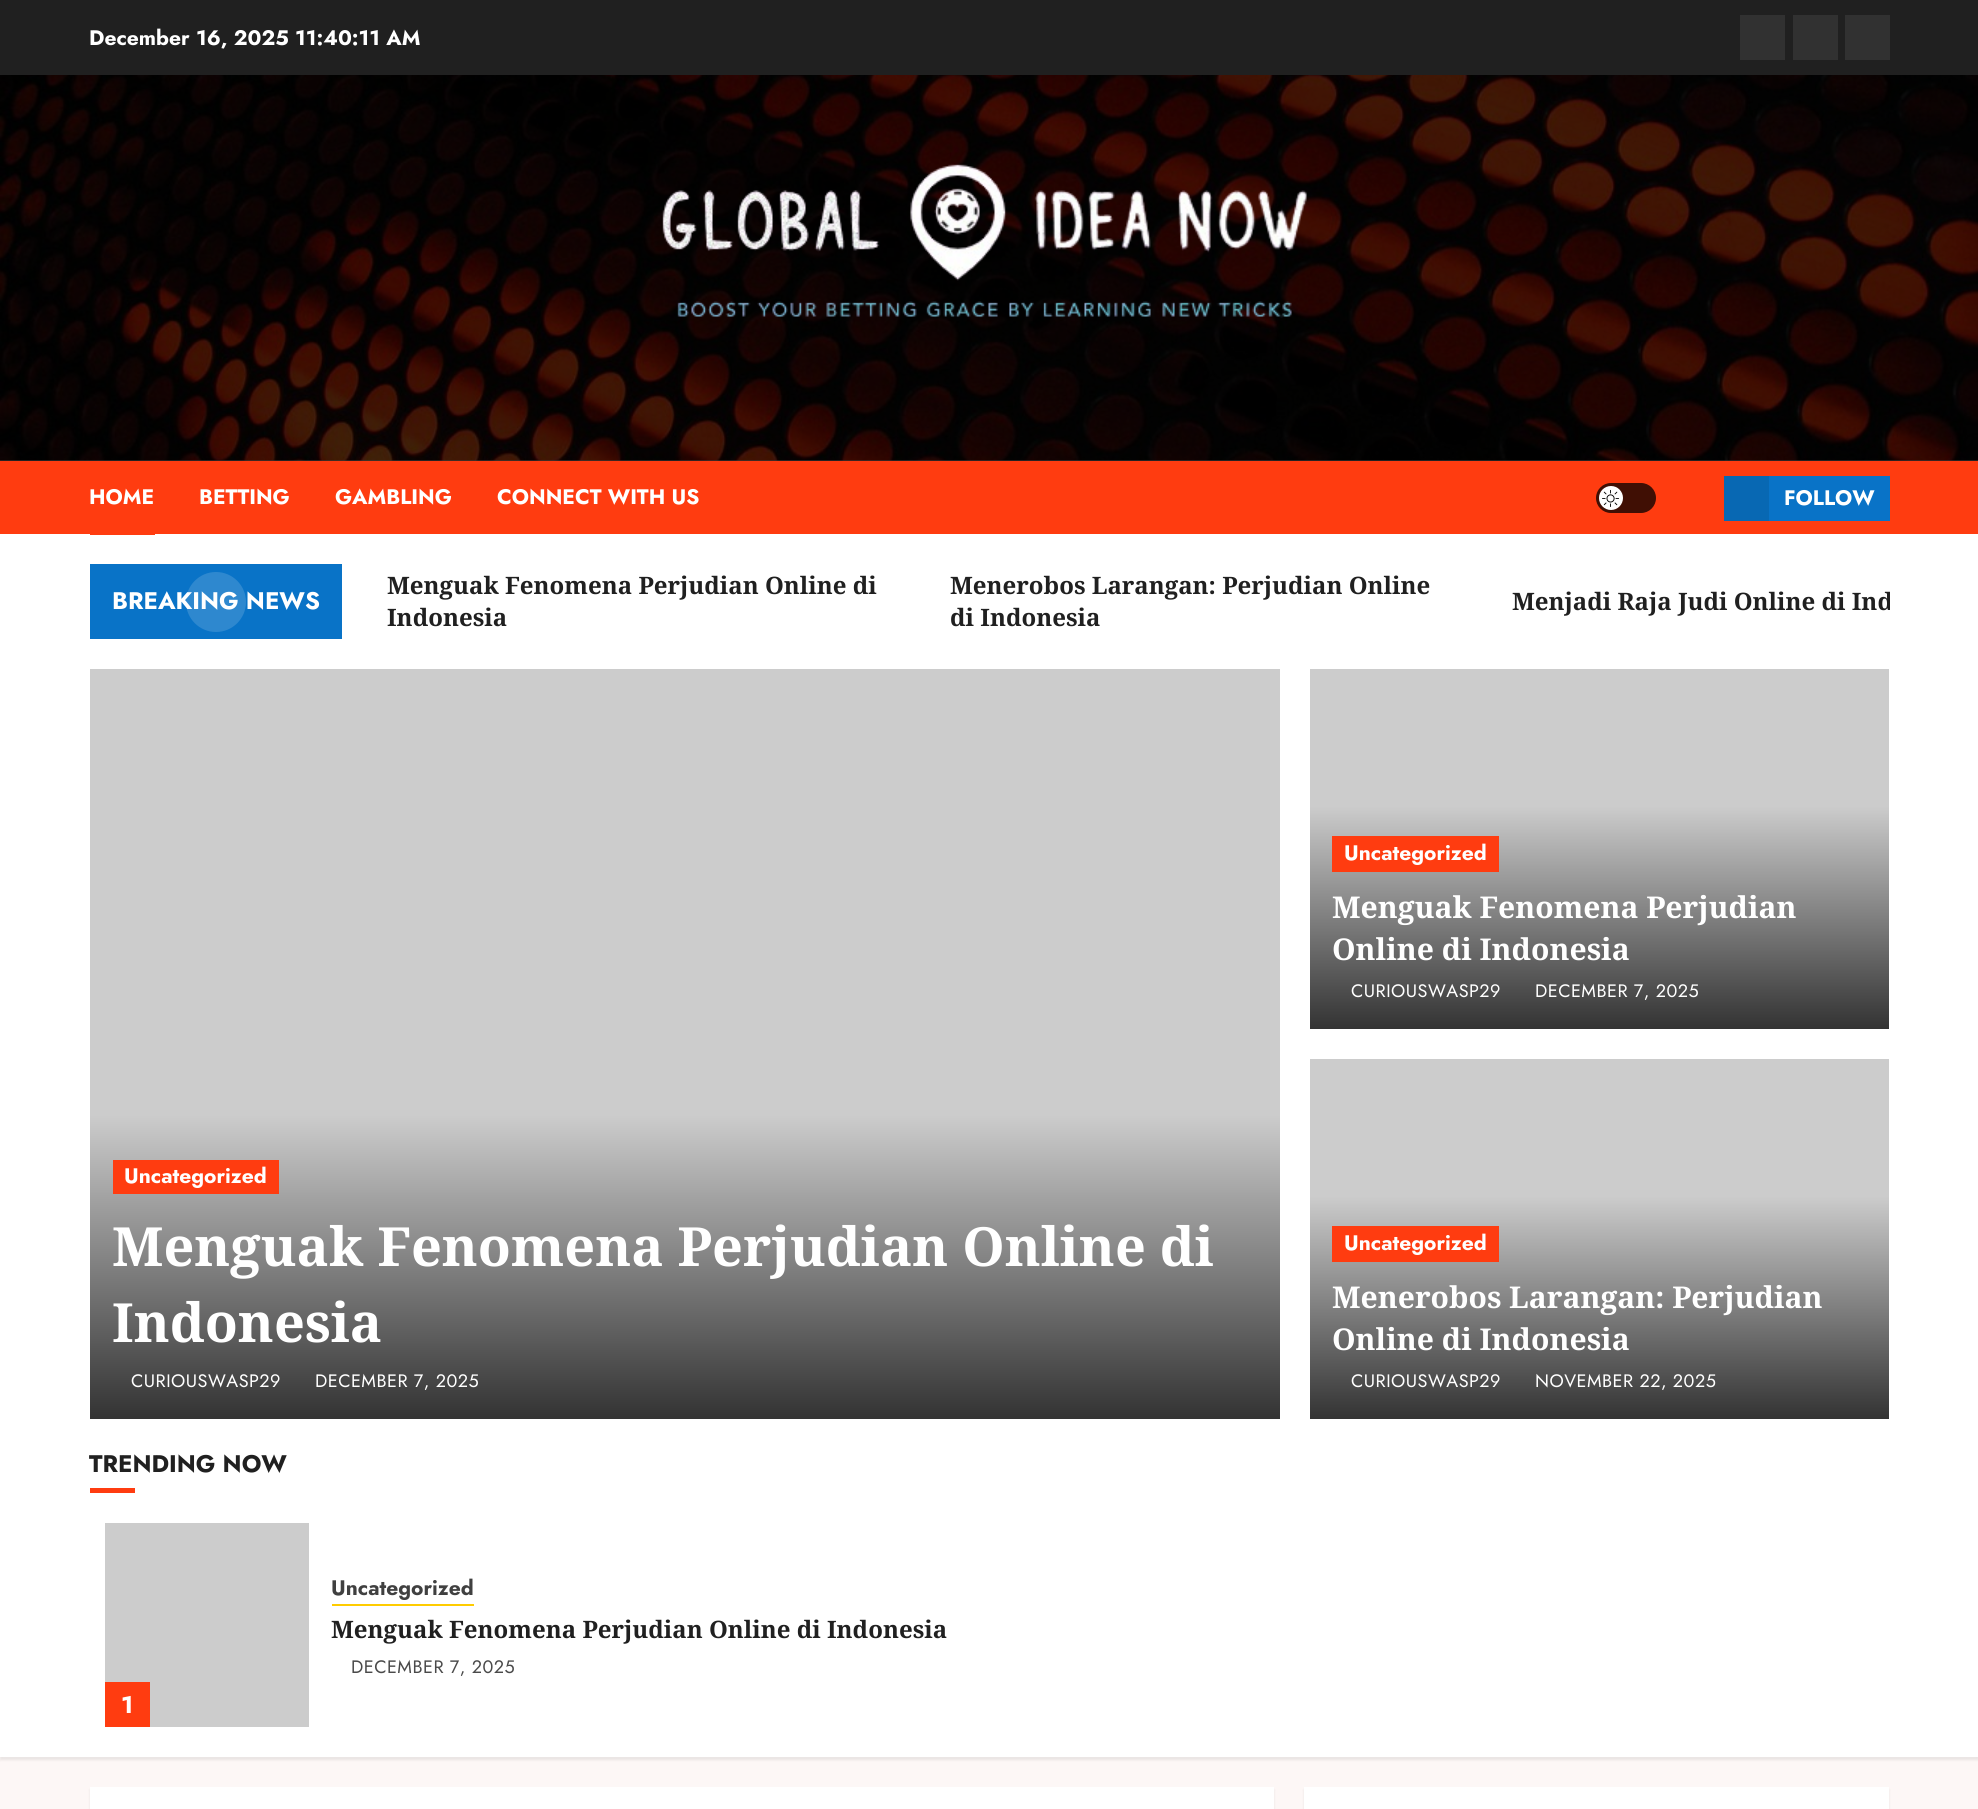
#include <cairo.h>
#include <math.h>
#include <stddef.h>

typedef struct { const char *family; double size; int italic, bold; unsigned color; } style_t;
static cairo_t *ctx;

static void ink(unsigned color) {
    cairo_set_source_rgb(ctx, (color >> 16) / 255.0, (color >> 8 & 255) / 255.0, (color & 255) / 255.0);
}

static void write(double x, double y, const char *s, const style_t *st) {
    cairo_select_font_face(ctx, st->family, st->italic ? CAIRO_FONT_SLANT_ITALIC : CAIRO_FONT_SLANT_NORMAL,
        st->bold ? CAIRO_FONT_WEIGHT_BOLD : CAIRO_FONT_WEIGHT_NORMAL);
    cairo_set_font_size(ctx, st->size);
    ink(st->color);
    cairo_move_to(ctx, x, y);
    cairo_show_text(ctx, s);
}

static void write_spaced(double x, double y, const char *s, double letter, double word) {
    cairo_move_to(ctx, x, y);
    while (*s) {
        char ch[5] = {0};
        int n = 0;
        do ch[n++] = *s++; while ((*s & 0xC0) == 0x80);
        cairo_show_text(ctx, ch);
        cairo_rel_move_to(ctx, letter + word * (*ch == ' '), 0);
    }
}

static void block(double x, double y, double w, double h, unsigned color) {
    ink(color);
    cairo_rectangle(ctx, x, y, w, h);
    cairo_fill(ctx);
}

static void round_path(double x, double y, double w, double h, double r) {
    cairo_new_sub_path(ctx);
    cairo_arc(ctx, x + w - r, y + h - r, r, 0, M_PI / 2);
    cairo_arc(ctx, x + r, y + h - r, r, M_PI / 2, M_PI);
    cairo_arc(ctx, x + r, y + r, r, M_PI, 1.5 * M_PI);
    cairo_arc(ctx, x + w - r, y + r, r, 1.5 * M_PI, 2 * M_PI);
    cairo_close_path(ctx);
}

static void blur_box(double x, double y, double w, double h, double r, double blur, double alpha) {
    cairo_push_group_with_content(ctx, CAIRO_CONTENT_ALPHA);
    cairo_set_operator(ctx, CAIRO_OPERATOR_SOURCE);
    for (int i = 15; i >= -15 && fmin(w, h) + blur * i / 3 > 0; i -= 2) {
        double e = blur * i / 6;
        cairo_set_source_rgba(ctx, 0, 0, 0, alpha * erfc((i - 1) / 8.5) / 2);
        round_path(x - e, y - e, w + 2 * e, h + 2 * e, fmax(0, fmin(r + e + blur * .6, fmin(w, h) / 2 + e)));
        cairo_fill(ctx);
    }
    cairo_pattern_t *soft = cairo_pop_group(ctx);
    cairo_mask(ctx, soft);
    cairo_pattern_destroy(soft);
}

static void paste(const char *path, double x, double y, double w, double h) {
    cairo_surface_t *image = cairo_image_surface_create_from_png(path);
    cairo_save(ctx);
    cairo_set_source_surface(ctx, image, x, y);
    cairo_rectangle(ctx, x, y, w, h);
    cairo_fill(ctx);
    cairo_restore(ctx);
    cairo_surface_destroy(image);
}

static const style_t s1 = {"Jost", 21, 0, 1, 0xffffff};
static const style_t s2 = {"Jost", 24, 0, 1, 0xffffff};
static const style_t s3 = {"Noto Serif", 24, 0, 1, 0x202020};
static const style_t s4 = {"Noto Serif", 54, 0, 1, 0xffffff};
static const style_t s5 = {"Noto Serif", 30, 0, 1, 0xffffff};
static const style_t s6 = {"Jost", 24, 0, 1, 0x202020};
static const style_t s7 = {"Jost", 21, 0, 1, 0x404040};

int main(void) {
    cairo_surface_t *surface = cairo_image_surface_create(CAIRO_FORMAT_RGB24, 1978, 1809);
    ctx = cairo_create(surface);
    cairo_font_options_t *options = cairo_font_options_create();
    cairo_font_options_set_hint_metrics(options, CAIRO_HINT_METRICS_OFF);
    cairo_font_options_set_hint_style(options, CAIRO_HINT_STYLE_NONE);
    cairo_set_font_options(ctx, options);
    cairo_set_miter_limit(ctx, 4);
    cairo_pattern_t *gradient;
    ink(0xfdf7f6);
    cairo_paint(ctx);
    block(0, 0, 1978, 75, 0x202020);
    write(89, 45, "December 16, 2025 11:40:11 AM", &s1);
    block(1740, 15, 45, 45, 0x313131);
    block(1793, 15, 45, 45, 0x313131);
    block(1845, 15, 45, 45, 0x313131);
    block(0, 460, 1978, 1, 0x404040);
    paste("pic1.png", 0, 75, 1978, 386);
    paste("pic2.png", 662, 164, 645, 154);
    block(0, 461, 1978, 73, 0xff3c10);
    write(89, 504, "HOME", &s1);
    ink(0x000000);
    blur_box(0, 537, 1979, 1223, 0, 1.5, 0.08);
    block(0, 534, 1978, 1223, 0xffffff);
    block(90, 534, 65, 1, 0xff3c10);
    write(199, 504, "BETTING", &s1);
    write(335, 504, "GAMBLING", &s1);
    write(497, 504, "CONNECT WITH US", &s1);
    ink(0x400f04);
    round_path(1596, 483, 60, 30, 15);
    cairo_fill(ctx);
    ink(0xffffff);
    cairo_arc(ctx, 1611, 498, 12, 0, 2 * M_PI);
    cairo_fill(ctx);
    paste("pic3.png", 1602, 489, 18, 18);
    block(1769, 476, 121, 45, 0x0973c7);
    block(1724, 476, 45, 45, 0x0868b3);
    write(1784, 505, "FOLLOW", &s1);
    block(90, 564, 252, 75, 0x0973c7);
    ink(0x2e88cf);
    cairo_new_path(ctx);
    cairo_arc(ctx, 216, 602, 30, 0, 2 * M_PI);
    cairo_fill(ctx);
    write(112, 609, "BREAKING NEWS", &s2);
    write(387, 594, "Menguak Fenomena Perjudian Online di", &s3);
    write(387, 626, "Indonesia", &s3);
    write(950, 594, "Menerobos Larangan: Perjudian Online", &s3);
    write(950, 626, "di Indonesia", &s3);
    cairo_save(ctx);
    cairo_rectangle(ctx, 350, 564, 1540, 75);
    cairo_clip(ctx);
    write(1512, 610, "Menjadi Raja Judi Online di Ind", &s3);
    cairo_restore(ctx);
    block(90, 669, 1190, 446, 0xcccccc);
    gradient = cairo_pattern_create_linear(685, 1115, 685, 1419);
    cairo_pattern_add_color_stop_rgba(gradient, 0, 0.8, 0.8, 0.8, 1);
    cairo_pattern_add_color_stop_rgba(gradient, 1, 0.2, 0.2, 0.2, 1);
    cairo_set_source(ctx, gradient);
    cairo_pattern_destroy(gradient);
    cairo_rectangle(ctx, 90, 1115, 1190, 304);
    cairo_fill(ctx);
    block(113, 1160, 166, 34, 0xff3c10);
    write(124, 1183, "Uncategorized", &s1);
    write(112, 1266, "Menguak Fenomena Perjudian Online di", &s4);
    write(112, 1342, "Indonesia", &s4);
    cairo_select_font_face(ctx, "Jost", CAIRO_FONT_SLANT_NORMAL, CAIRO_FONT_WEIGHT_NORMAL);
    cairo_set_font_size(ctx, 18);
    write_spaced(131, 1387, "CURIOUSWASP29", 0.5, 0);
    write_spaced(315, 1387, "DECEMBER 7, 2025", 0.5, 0);
    block(1310, 669, 579, 137, 0xcccccc);
    gradient = cairo_pattern_create_linear(1599, 806, 1599, 1029);
    cairo_pattern_add_color_stop_rgba(gradient, 0, 0.8, 0.8, 0.8, 1);
    cairo_pattern_add_color_stop_rgba(gradient, 1, 0.2, 0.2, 0.2, 1);
    cairo_set_source(ctx, gradient);
    cairo_pattern_destroy(gradient);
    cairo_rectangle(ctx, 1310, 806, 579, 223);
    cairo_fill(ctx);
    block(1332, 836, 167, 36, 0xff3c10);
    write(1344, 860, "Uncategorized", &s1);
    write(1332, 918, "Menguak Fenomena Perjudian", &s5);
    write(1332, 960, "Online di Indonesia", &s5);
    cairo_select_font_face(ctx, "Jost", CAIRO_FONT_SLANT_NORMAL, CAIRO_FONT_WEIGHT_NORMAL);
    cairo_set_font_size(ctx, 18);
    write_spaced(1351, 997, "CURIOUSWASP29", 0.5, 0);
    write_spaced(1535, 997, "DECEMBER 7, 2025", 0.5, 0);
    block(1310, 1059, 579, 137, 0xcccccc);
    gradient = cairo_pattern_create_linear(1599, 1196, 1599, 1419);
    cairo_pattern_add_color_stop_rgba(gradient, 0, 0.8, 0.8, 0.8, 1);
    cairo_pattern_add_color_stop_rgba(gradient, 1, 0.2, 0.2, 0.2, 1);
    cairo_set_source(ctx, gradient);
    cairo_pattern_destroy(gradient);
    cairo_rectangle(ctx, 1310, 1196, 579, 223);
    cairo_fill(ctx);
    block(1332, 1226, 167, 36, 0xff3c10);
    write(1344, 1250, "Uncategorized", &s1);
    write(1332, 1308, "Menerobos Larangan: Perjudian", &s5);
    write(1332, 1350, "Online di Indonesia", &s5);
    cairo_select_font_face(ctx, "Jost", CAIRO_FONT_SLANT_NORMAL, CAIRO_FONT_WEIGHT_NORMAL);
    cairo_set_font_size(ctx, 18);
    write_spaced(1351, 1387, "CURIOUSWASP29", 0.5, 0);
    write_spaced(1535, 1387, "NOVEMBER 22, 2025", 0.5, 0);
    write(89, 1472, "TRENDING NOW", &s6);
    block(90, 1488, 45, 5, 0xff3c10);
    block(332, 1604, 142, 2, 0xffcc00);
    write(331, 1595, "Uncategorized", &s7);
    write(331, 1638, "Menguak Fenomena Perjudian Online di Indonesia", &s3);
    cairo_select_font_face(ctx, "Jost", CAIRO_FONT_SLANT_NORMAL, CAIRO_FONT_WEIGHT_NORMAL);
    cairo_set_font_size(ctx, 18);
    ink(0x4a4a4a);
    write_spaced(351, 1673, "DECEMBER 7, 2025", 0.5, 0);
    block(105, 1523, 204, 204, 0xcccccc);
    block(105, 1682, 45, 45, 0xff3c10);
    write(121, 1713, "1", &s2);
    ink(0x000000);
    blur_box(90, 1790, 1184, 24, 0, 1.5, 0.08);
    block(90, 1787, 1184, 22, 0xffffff);
    ink(0x000000);
    blur_box(1304, 1790, 585, 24, 0, 1.5, 0.08);
    block(1304, 1787, 585, 22, 0xffffff);
    cairo_surface_write_to_png(surface, "screenshot.png");
    cairo_font_options_destroy(options);
    cairo_destroy(ctx);
    cairo_surface_destroy(surface);
    return 0;
}
